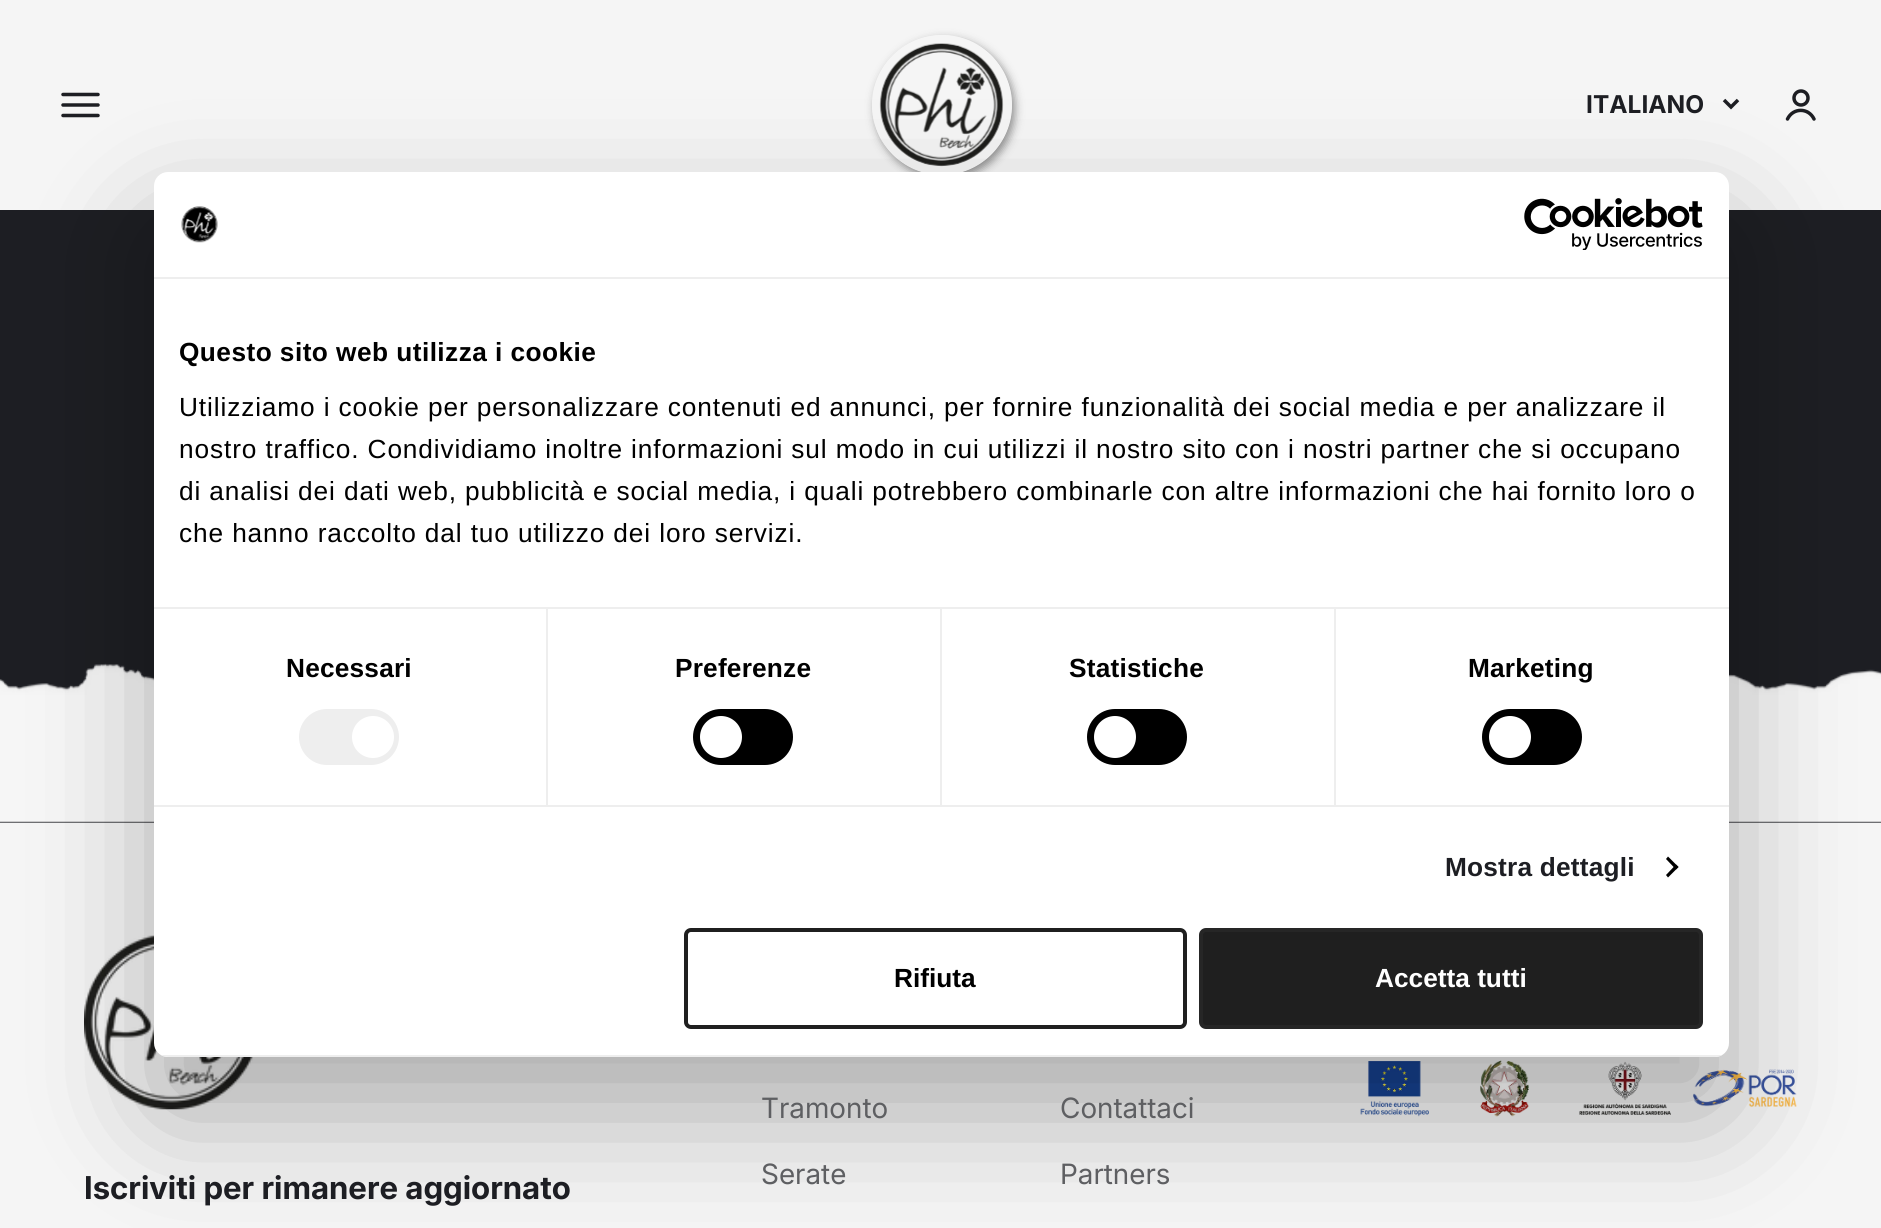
#include <cairo.h>
#include <math.h>
#include <stddef.h>

typedef struct { const char *family; double size; int italic, bold; unsigned color; } style_t;
static cairo_t *ctx;

static void ink(unsigned color) {
    cairo_set_source_rgb(ctx, (color >> 16) / 255.0, (color >> 8 & 255) / 255.0, (color & 255) / 255.0);
}

static void write(double x, double y, const char *s, const style_t *st) {
    cairo_select_font_face(ctx, st->family, st->italic ? CAIRO_FONT_SLANT_ITALIC : CAIRO_FONT_SLANT_NORMAL,
        st->bold ? CAIRO_FONT_WEIGHT_BOLD : CAIRO_FONT_WEIGHT_NORMAL);
    cairo_set_font_size(ctx, st->size);
    ink(st->color);
    cairo_move_to(ctx, x, y);
    cairo_show_text(ctx, s);
}

static void write_spaced(double x, double y, const char *s, double letter, double word) {
    cairo_move_to(ctx, x, y);
    while (*s) {
        char ch[5] = {0};
        int n = 0;
        do ch[n++] = *s++; while ((*s & 0xC0) == 0x80);
        cairo_show_text(ctx, ch);
        cairo_rel_move_to(ctx, letter + word * (*ch == ' '), 0);
    }
}

static void block(double x, double y, double w, double h, unsigned color) {
    ink(color);
    cairo_rectangle(ctx, x, y, w, h);
    cairo_fill(ctx);
}

static void round_path(double x, double y, double w, double h, double r) {
    cairo_new_sub_path(ctx);
    cairo_arc(ctx, x + w - r, y + h - r, r, 0, M_PI / 2);
    cairo_arc(ctx, x + r, y + h - r, r, M_PI / 2, M_PI);
    cairo_arc(ctx, x + r, y + r, r, M_PI, 1.5 * M_PI);
    cairo_arc(ctx, x + w - r, y + r, r, 1.5 * M_PI, 2 * M_PI);
    cairo_close_path(ctx);
}

static void blur_box(double x, double y, double w, double h, double r, double blur, double alpha) {
    cairo_push_group_with_content(ctx, CAIRO_CONTENT_ALPHA);
    cairo_set_operator(ctx, CAIRO_OPERATOR_SOURCE);
    for (int i = 15; i >= -15 && fmin(w, h) + blur * i / 3 > 0; i -= 2) {
        double e = blur * i / 6;
        cairo_set_source_rgba(ctx, 0, 0, 0, alpha * erfc((i - 1) / 8.5) / 2);
        round_path(x - e, y - e, w + 2 * e, h + 2 * e, fmax(0, fmin(r + e + blur * .6, fmin(w, h) / 2 + e)));
        cairo_fill(ctx);
    }
    cairo_pattern_t *soft = cairo_pop_group(ctx);
    cairo_mask(ctx, soft);
    cairo_pattern_destroy(soft);
}

static void paste(const char *path, double x, double y, double w, double h) {
    cairo_surface_t *image = cairo_image_surface_create_from_png(path);
    cairo_save(ctx);
    cairo_set_source_surface(ctx, image, x, y);
    cairo_rectangle(ctx, x, y, w, h);
    cairo_fill(ctx);
    cairo_restore(ctx);
    cairo_surface_destroy(image);
}

static const style_t s1 = {"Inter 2", 24.5, 0, 1, 0x1d1e23};
static const style_t s2 = {"Liberation Sans", 26.25, 0, 1, 0x000000};
static const style_t s3 = {"Liberation Sans", 26.25, 0, 1, 0xffffff};
static const style_t s4 = {"Inter", 28, 0, 0, 0x5e5f62};
static const style_t s5 = {"Inter", 31.5, 0, 1, 0x1d1e23};

int main(void) {
    cairo_surface_t *surface = cairo_image_surface_create(CAIRO_FORMAT_RGB24, 1881, 1228);
    ctx = cairo_create(surface);
    cairo_font_options_t *options = cairo_font_options_create();
    cairo_font_options_set_hint_metrics(options, CAIRO_HINT_METRICS_OFF);
    cairo_font_options_set_hint_style(options, CAIRO_HINT_STYLE_NONE);
    cairo_set_font_options(ctx, options);
    cairo_set_miter_limit(ctx, 4);
    ink(0x1d1e23);
    cairo_paint(ctx);
    block(0, 0, 1881, 210, 0xf5f5f5);
    cairo_new_path(ctx);
    cairo_move_to(ctx, 63, 94.5);
    cairo_line_to(ctx, 98, 94.5);
    cairo_move_to(ctx, 63, 105);
    cairo_line_to(ctx, 98, 105);
    cairo_move_to(ctx, 63, 115.5);
    cairo_line_to(ctx, 98, 115.5);
    ink(0x1d1e23);
    cairo_set_line_width(ctx, 3.5);
    cairo_set_line_cap(ctx, CAIRO_LINE_CAP_ROUND);
    cairo_stroke(ctx);
    cairo_save(ctx);
    cairo_set_fill_rule(ctx, CAIRO_FILL_RULE_EVEN_ODD);
    cairo_new_path(ctx);
    cairo_move_to(ctx, 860, 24);
    cairo_line_to(ctx, 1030, 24);
    cairo_line_to(ctx, 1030, 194);
    cairo_line_to(ctx, 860, 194);
    cairo_close_path(ctx);
    cairo_move_to(ctx, 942, 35);
    cairo_curve_to(ctx, 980.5, 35, 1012, 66.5, 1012, 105);
    cairo_curve_to(ctx, 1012, 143.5, 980.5, 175, 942, 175);
    cairo_curve_to(ctx, 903.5, 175, 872, 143.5, 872, 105);
    cairo_curve_to(ctx, 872, 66.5, 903.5, 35, 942, 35);
    cairo_close_path(ctx);
    cairo_clip(ctx);
    ink(0x000000);
    blur_box(875, 39, 140, 140, 70, 4.5, 0.41);
    cairo_restore(ctx);
    paste("pic1.png", 879, 43, 125, 124);
    write(1586, 113, "ITALIANO", &s1);
    cairo_new_path(ctx);
    cairo_move_to(ctx, 1724, 100);
    cairo_line_to(ctx, 1731, 107);
    cairo_line_to(ctx, 1738, 100);
    cairo_set_line_cap(ctx, CAIRO_LINE_CAP_BUTT);
    cairo_stroke(ctx);
    cairo_arc(ctx, 1801, 98, 7, 0, 2 * M_PI);
    cairo_stroke(ctx);
    cairo_new_path(ctx);
    cairo_move_to(ctx, 1787.5, 119);
    cairo_curve_to(ctx, 1793, 107.5, 1808.5, 107.5, 1814, 119);
    cairo_set_line_cap(ctx, CAIRO_LINE_CAP_ROUND);
    cairo_stroke(ctx);
    paste("pic4.png", 0, 663, 1881, 160);
    block(0, 823, 1881, 405, 0xf5f5f5);
    paste("pic5.png", 1360, 1060, 437, 57);
    paste("pic6.png", 84, 935, 169, 175);
    ink(0x000000);
    blur_box(154, 228, 1575, 885, 14, 59.5, 0.3);
    ink(0xffffff);
    round_path(154, 172, 1575, 885, 14);
    cairo_fill(ctx);
    block(154, 277, 1575, 2, 0xeeeeee);
    paste("pic2.png", 181, 206, 37, 37);
    paste("pic3.png", 1524, 198, 179, 52);
    block(154, 607, 1575, 2, 0xeeeeee);
    cairo_select_font_face(ctx, "Liberation Sans", CAIRO_FONT_SLANT_NORMAL, CAIRO_FONT_WEIGHT_BOLD);
    cairo_set_font_size(ctx, 26.25);
    ink(0x000000);
    write_spaced(179, 361, "Questo sito web utilizza i cookie", 0.45, 0);
    cairo_select_font_face(ctx, "Liberation Sans", CAIRO_FONT_SLANT_NORMAL, CAIRO_FONT_WEIGHT_NORMAL);
    write_spaced(179, 416, "Utilizziamo i cookie per personalizzare contenuti ed annunci, per fornire funzionalità dei social media e per analizzare il", 0.88, 0);
    write_spaced(179, 458, "nostro traffico. Condividiamo inoltre informazioni sul modo in cui utilizzi il nostro sito con i nostri partner che si occupano", 0.88, 0);
    write_spaced(179, 500, "di analisi dei dati web, pubblicità e social media, i quali potrebbero combinarle con altre informazioni che hai fornito loro o", 0.88, 0);
    write_spaced(179, 542, "che hanno raccolto dal tuo utilizzo dei loro servizi.", 0.88, 0);
    block(154, 805, 1575, 2, 0xeeeeee);
    block(546, 609, 2, 196, 0xeeeeee);
    cairo_select_font_face(ctx, "Liberation Sans", CAIRO_FONT_SLANT_NORMAL, CAIRO_FONT_WEIGHT_BOLD);
    ink(0x000000);
    write_spaced(286, 677, "Necessari", 0.2, 0);
    ink(0xeeeeee);
    round_path(299, 709, 100, 56, 28);
    cairo_fill(ctx);
    ink(0xffffff);
    cairo_arc(ctx, 373, 737, 21, 0, 2 * M_PI);
    cairo_fill(ctx);
    block(940, 609, 2, 196, 0xeeeeee);
    ink(0x000000);
    write_spaced(675, 677, "Preferenze", 0.2, 0);
    round_path(693, 709, 100, 56, 28);
    cairo_fill(ctx);
    ink(0xffffff);
    cairo_arc(ctx, 721, 737, 21, 0, 2 * M_PI);
    cairo_fill(ctx);
    block(1334, 609, 2, 196, 0xeeeeee);
    ink(0x000000);
    write_spaced(1069, 677, "Statistiche", 0.2, 0);
    round_path(1087, 709, 100, 56, 28);
    cairo_fill(ctx);
    ink(0xffffff);
    cairo_arc(ctx, 1115, 737, 21, 0, 2 * M_PI);
    cairo_fill(ctx);
    ink(0x000000);
    write_spaced(1468, 677, "Marketing", 0.2, 0);
    round_path(1482, 709, 100, 56, 28);
    cairo_fill(ctx);
    ink(0xffffff);
    cairo_arc(ctx, 1510, 737, 21, 0, 2 * M_PI);
    cairo_fill(ctx);
    ink(0x1d1e23);
    write_spaced(1445, 876, "Mostra dettagli", 0.2, 0);
    ink(0x000000);
    cairo_new_path(ctx);
    cairo_move_to(ctx, 1668, 856.5);
    cairo_line_to(ctx, 1678.5, 867);
    cairo_line_to(ctx, 1676, 869.5);
    cairo_line_to(ctx, 1666, 859);
    cairo_close_path(ctx);
    cairo_fill(ctx);
    cairo_new_path(ctx);
    cairo_move_to(ctx, 1676, 864.5);
    cairo_line_to(ctx, 1678.5, 867);
    cairo_line_to(ctx, 1668, 877.5);
    cairo_line_to(ctx, 1666, 875);
    cairo_close_path(ctx);
    cairo_fill(ctx);
    cairo_save(ctx);
    round_path(154, 172, 1575, 885, 14);
    cairo_clip(ctx);
    block(154, 1055, 1575, 2, 0xeeeeee);
    cairo_restore(ctx);
    round_path(686, 930, 499, 97, 5);
    ink(0x1f1f1f);
    cairo_set_line_width(ctx, 4);
    cairo_set_line_cap(ctx, CAIRO_LINE_CAP_BUTT);
    cairo_stroke(ctx);
    write(894, 987, "Rifiuta", &s2);
    ink(0x1f1f1f);
    round_path(1201, 930, 500, 97, 5);
    cairo_fill_preserve(ctx);
    ink(0x262626);
    cairo_stroke(ctx);
    write(1375, 987, "Accetta tutti", &s3);
    write(761, 1118, "Tramonto", &s4);
    write(761, 1184, "Serate", &s4);
    write(1060, 1118, "Contattaci", &s4);
    write(1060, 1184, "Partners", &s4);
    write(84, 1199, "Iscriviti per rimanere aggiornato", &s5);
    cairo_surface_write_to_png(surface, "screenshot.png");
    cairo_font_options_destroy(options);
    cairo_destroy(ctx);
    cairo_surface_destroy(surface);
    return 0;
}
